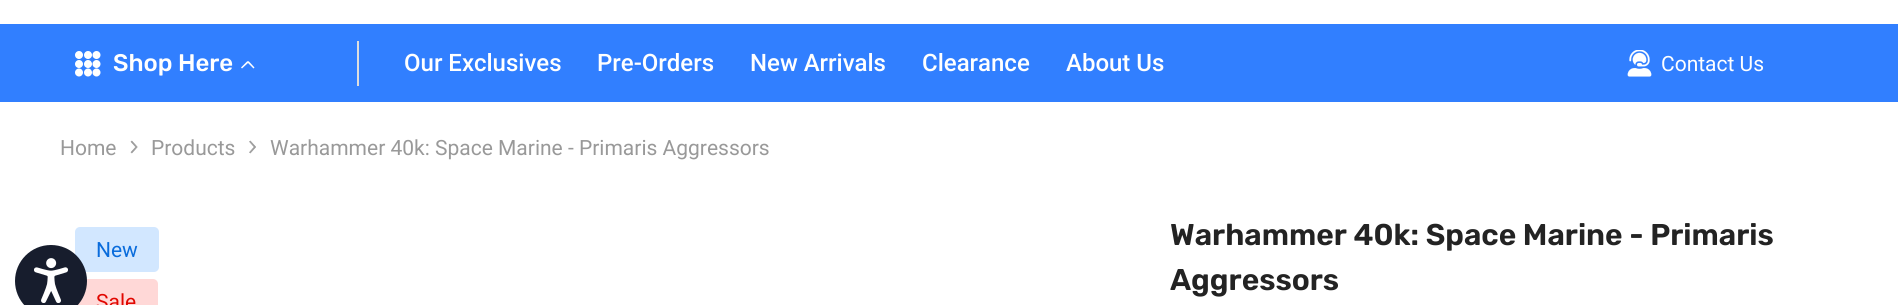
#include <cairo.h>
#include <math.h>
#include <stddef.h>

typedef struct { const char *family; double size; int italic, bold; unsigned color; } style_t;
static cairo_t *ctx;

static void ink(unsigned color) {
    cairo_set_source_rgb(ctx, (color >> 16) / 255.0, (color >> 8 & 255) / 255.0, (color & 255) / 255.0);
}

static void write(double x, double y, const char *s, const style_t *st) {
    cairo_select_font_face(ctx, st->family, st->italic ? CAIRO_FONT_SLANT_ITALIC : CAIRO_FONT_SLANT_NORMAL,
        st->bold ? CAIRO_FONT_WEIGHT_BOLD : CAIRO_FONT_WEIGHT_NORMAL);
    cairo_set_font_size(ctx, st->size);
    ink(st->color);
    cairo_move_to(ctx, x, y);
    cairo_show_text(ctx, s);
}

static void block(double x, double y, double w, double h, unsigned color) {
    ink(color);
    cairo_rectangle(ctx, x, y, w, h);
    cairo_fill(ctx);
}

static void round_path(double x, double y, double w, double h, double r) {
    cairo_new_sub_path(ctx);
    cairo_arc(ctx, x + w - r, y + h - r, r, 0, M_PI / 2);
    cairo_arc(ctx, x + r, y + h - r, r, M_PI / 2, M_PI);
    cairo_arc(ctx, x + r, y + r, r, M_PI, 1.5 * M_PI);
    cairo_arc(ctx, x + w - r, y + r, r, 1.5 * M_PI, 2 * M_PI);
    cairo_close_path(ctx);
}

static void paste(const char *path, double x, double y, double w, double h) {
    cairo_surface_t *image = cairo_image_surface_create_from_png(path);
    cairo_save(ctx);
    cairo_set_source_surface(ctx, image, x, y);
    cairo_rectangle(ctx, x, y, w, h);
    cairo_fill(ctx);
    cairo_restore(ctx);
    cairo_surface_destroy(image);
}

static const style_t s1 = {"Rubik Medium", 24, 0, 0, 0xffffff};
static const style_t s2 = {"Roboto Medium", 24, 0, 0, 0xffffff};
static const style_t s3 = {"Roboto", 21, 0, 0, 0xffffff};
static const style_t s4 = {"Roboto", 21, 0, 0, 0x999999};
static const style_t s5 = {"Roboto", 21, 0, 0, 0x0a6cdc};
static const style_t s6 = {"Roboto", 21, 0, 0, 0xe10600};
static const style_t s7 = {"Rubik SemiBold", 30, 0, 0, 0x232323};

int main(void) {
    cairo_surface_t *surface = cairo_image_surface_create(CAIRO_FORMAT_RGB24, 1898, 305);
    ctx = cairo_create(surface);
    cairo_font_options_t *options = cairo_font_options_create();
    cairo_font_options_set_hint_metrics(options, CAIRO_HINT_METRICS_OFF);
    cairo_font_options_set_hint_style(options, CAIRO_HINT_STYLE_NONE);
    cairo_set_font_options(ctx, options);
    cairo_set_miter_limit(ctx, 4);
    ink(0xffffff);
    cairo_paint(ctx);
    ink(0xd2e7ff);
    round_path(75, 227, 84, 45, 5);
    cairo_fill(ctx);
    ink(0xffd8d7);
    round_path(75, 279, 83, 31, 5);
    cairo_fill(ctx);
    ink(0x171d2d);
    cairo_arc(ctx, 51, 281, 36, 0, 2 * M_PI);
    cairo_fill(ctx);
    paste("pic1.png", 34, 258, 34, 45);
    block(0, 24, 1898, 78, 0x317fff);
    paste("pic2.png", 75, 51, 26, 26);
    write(113, 71, "Shop Here", &s1);
    cairo_new_path(ctx);
    cairo_move_to(ctx, 241, 67.5);
    cairo_line_to(ctx, 247.5, 61);
    cairo_line_to(ctx, 248.5, 62.5);
    cairo_line_to(ctx, 242, 68.5);
    cairo_close_path(ctx);
    cairo_fill(ctx);
    cairo_new_path(ctx);
    cairo_move_to(ctx, 253.5, 68.5);
    cairo_line_to(ctx, 247.5, 62.5);
    cairo_line_to(ctx, 248.5, 61);
    cairo_line_to(ctx, 254.5, 67.5);
    cairo_close_path(ctx);
    cairo_fill(ctx);
    block(357, 41, 2, 45, 0xdedede);
    write(404, 71, "Our Exclusives", &s2);
    write(597, 71, "Pre-Orders", &s2);
    write(750, 71, "New Arrivals", &s2);
    write(922, 71, "Clearance", &s2);
    write(1066, 71, "About Us", &s2);
    paste("pic3.png", 1627, 50, 25, 27);
    write(1661, 71, "Contact Us", &s3);
    write(60, 155, "Home", &s4);
    paste("pic4.png", 130, 140, 8, 14);
    write(151, 155, "Products", &s4);
    paste("pic5.png", 249, 140, 7, 14);
    write(270, 155, "Warhammer 40k: Space Marine - Primaris Aggressors", &s4);
    write(96, 257, "New", &s5);
    write(96, 309, "Sale", &s6);
    write(1170, 245, "Warhammer 40k: Space Marine - Primaris", &s7);
    write(1170, 290, "Aggressors", &s7);
    cairo_surface_write_to_png(surface, "screenshot.png");
    cairo_font_options_destroy(options);
    cairo_destroy(ctx);
    cairo_surface_destroy(surface);
    return 0;
}
